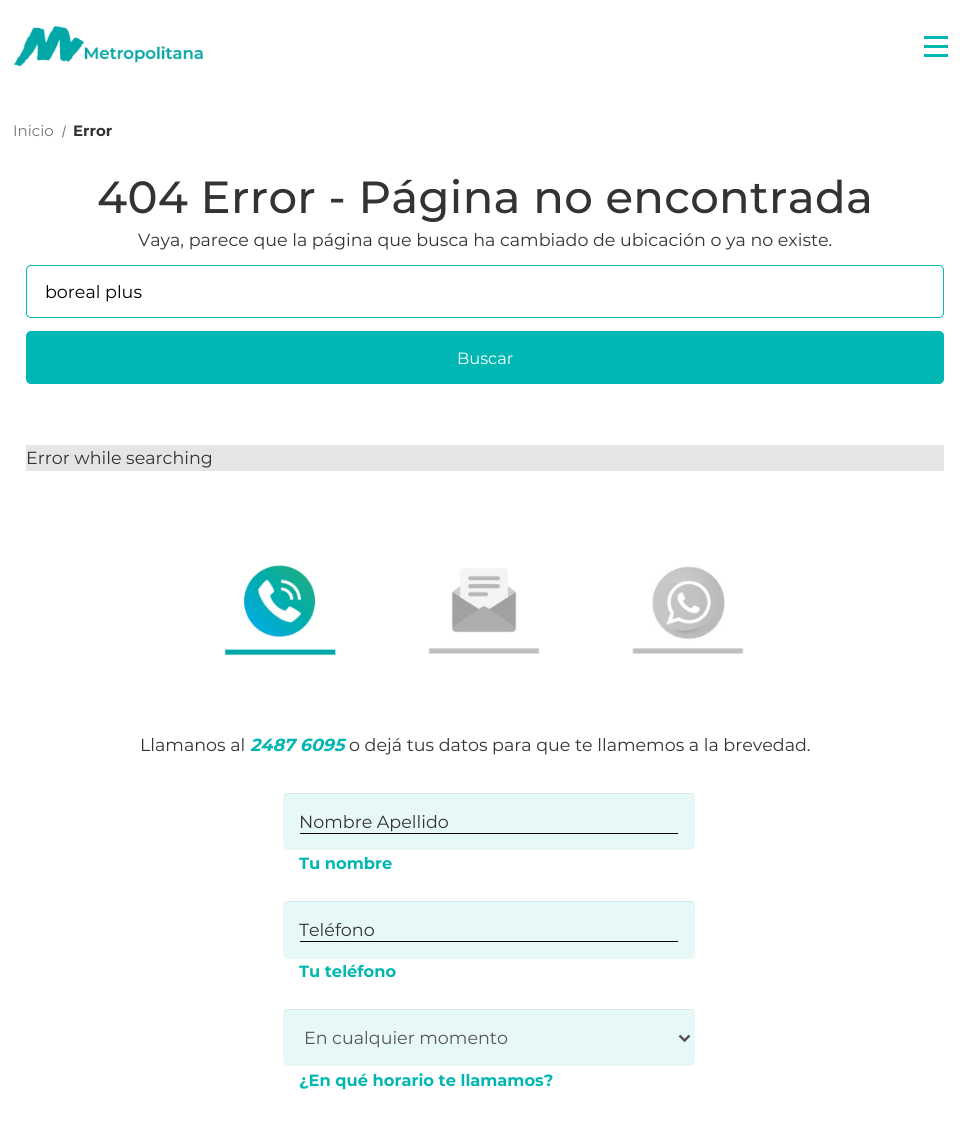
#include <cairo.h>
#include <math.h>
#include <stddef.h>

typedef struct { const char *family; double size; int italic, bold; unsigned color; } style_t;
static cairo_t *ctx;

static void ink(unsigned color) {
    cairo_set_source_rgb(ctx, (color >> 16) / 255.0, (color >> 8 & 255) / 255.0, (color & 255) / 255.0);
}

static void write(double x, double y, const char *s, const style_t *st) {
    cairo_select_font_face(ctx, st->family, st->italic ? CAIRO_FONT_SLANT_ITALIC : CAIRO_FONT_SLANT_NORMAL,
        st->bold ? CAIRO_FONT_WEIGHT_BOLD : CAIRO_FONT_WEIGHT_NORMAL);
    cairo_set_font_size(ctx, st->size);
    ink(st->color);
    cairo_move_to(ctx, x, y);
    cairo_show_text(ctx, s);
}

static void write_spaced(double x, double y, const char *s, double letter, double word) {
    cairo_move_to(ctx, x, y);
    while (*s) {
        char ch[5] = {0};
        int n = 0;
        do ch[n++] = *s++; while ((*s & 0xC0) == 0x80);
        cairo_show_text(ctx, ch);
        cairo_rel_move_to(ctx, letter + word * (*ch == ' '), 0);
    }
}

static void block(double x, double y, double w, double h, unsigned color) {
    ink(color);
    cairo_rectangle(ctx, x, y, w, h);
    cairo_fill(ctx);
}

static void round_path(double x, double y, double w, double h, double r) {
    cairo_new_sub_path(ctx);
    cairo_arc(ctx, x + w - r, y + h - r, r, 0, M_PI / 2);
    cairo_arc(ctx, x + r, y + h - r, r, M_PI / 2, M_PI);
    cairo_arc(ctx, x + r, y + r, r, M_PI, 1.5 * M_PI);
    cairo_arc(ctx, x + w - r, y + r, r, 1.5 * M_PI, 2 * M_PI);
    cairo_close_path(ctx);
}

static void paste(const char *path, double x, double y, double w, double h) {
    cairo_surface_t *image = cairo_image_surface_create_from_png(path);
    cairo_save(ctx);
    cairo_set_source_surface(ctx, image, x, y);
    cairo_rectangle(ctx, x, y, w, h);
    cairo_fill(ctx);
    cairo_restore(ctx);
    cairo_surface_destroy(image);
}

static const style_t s1 = {"Montserrat", 15, 0, 0, 0x757575};
static const style_t s2 = {"Montserrat", 15, 0, 1, 0x333333};
static const style_t s3 = {"Montserrat", 17.5, 0, 0, 0x333333};
static const style_t s4 = {"Montserrat", 17.5, 0, 0, 0x000000};
static const style_t s5 = {"Montserrat", 16.25, 0, 0, 0xffffff};
static const style_t s6 = {"Montserrat", 17.5, 1, 1, 0x00b7b1};
static const style_t s7 = {"Montserrat", 16.25, 0, 1, 0x00b7b1};
static const style_t s8 = {"Montserrat", 17.5, 0, 0, 0x555555};

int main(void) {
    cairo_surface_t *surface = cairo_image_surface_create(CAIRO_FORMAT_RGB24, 969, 1137);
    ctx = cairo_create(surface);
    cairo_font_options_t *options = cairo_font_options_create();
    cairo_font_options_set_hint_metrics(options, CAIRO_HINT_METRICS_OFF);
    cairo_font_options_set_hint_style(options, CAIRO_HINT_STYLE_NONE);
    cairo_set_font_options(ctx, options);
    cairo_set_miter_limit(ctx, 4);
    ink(0xffffff);
    cairo_paint(ctx);
    paste("pic1.png", 13, 26, 190, 41);
    block(924, 45, 24, 3, 0x00b7b3);
    block(924, 36, 24, 3, 0x00b7b3);
    block(924, 54, 24, 3, 0x00b7b3);
    write(13, 136, "Inicio", &s1);
    cairo_new_path(ctx);
    cairo_move_to(ctx, 65, 125.5);
    cairo_line_to(ctx, 66, 125.5);
    cairo_line_to(ctx, 63, 137.5);
    cairo_line_to(ctx, 62, 137);
    cairo_close_path(ctx);
    cairo_fill(ctx);
    write(73, 136, "Error", &s2);
    cairo_select_font_face(ctx, "Montserrat Medium", CAIRO_FONT_SLANT_NORMAL, CAIRO_FONT_WEIGHT_NORMAL);
    cairo_set_font_size(ctx, 45);
    write_spaced(97, 213, "404 Error - Página no encontrada", 0.3, 0);
    write(138, 246, "Vaya, parece que la página que busca ha cambiado de ubicación o ya no existe.", &s3);
    round_path(26.5, 265.5, 917, 52, 4.5);
    ink(0x00b7b3);
    cairo_set_line_width(ctx, 1);
    cairo_stroke(ctx);
    write(45, 298, "boreal plus", &s4);
    ink(0x00b7b3);
    round_path(26.5, 331.5, 917, 52, 4.5);
    cairo_fill_preserve(ctx);
    cairo_stroke(ctx);
    write(457, 364, "Buscar", &s5);
    block(26, 445, 918, 26, 0xe5e5e5);
    write(26, 464, "Error while searching", &s3);
    paste("pic2.png", 224, 565, 113, 91);
    paste("pic3.png", 428, 568, 112, 86);
    paste("pic4.png", 632, 566, 112, 88);
    write(140, 751, "Llamanos al", &s3);
    write(250, 751, "2487 6095", &s6);
    write(349, 751, "o dejá tus datos para que te llamemos a la brevedad.", &s3);
    ink(0xe6f8f7);
    round_path(283, 793, 412, 57, 5);
    cairo_fill(ctx);
    cairo_set_source_rgba(ctx, 0, 0, 0, 0.07);
    cairo_new_path(ctx);
    cairo_move_to(ctx, 288, 794);
    cairo_line_to(ctx, 690, 794);
    cairo_curve_to(ctx, 693, 794, 695, 796, 695, 799);
    cairo_line_to(ctx, 695, 798);
    cairo_curve_to(ctx, 695, 795, 693, 793, 690, 793);
    cairo_line_to(ctx, 288, 793);
    cairo_curve_to(ctx, 286, 793, 284, 794, 284, 796);
    cairo_curve_to(ctx, 285, 795, 286, 794, 288, 794);
    cairo_close_path(ctx);
    cairo_fill(ctx);
    block(300, 833, 378, 1, 0x000000);
    write(299, 828, "Nombre Apellido", &s3);
    write(299, 869, "Tu nombre", &s7);
    ink(0xe6f8f7);
    round_path(283, 901, 412, 58, 5);
    cairo_fill(ctx);
    cairo_set_source_rgba(ctx, 0, 0, 0, 0.07);
    cairo_new_path(ctx);
    cairo_move_to(ctx, 288, 902);
    cairo_line_to(ctx, 690, 902);
    cairo_curve_to(ctx, 693, 902, 695, 905, 695, 908);
    cairo_line_to(ctx, 695, 906);
    cairo_curve_to(ctx, 695, 903, 693, 901, 690, 901);
    cairo_line_to(ctx, 288, 901);
    cairo_curve_to(ctx, 286, 901, 284, 903, 283, 905);
    cairo_curve_to(ctx, 284, 903, 286, 902, 288, 902);
    cairo_close_path(ctx);
    cairo_fill(ctx);
    block(300, 941, 378, 1, 0x000000);
    write(299, 936, "Teléfono", &s3);
    write(299, 977, "Tu teléfono", &s7);
    ink(0xe6f8f7);
    round_path(283, 1009, 412, 57, 5);
    cairo_fill(ctx);
    cairo_set_source_rgba(ctx, 0, 0, 0, 0.07);
    cairo_new_path(ctx);
    cairo_move_to(ctx, 288, 1010);
    cairo_line_to(ctx, 690, 1010);
    cairo_curve_to(ctx, 693, 1010, 695, 1012, 695, 1015);
    cairo_line_to(ctx, 695, 1014);
    cairo_curve_to(ctx, 695, 1011, 693, 1009, 690, 1009);
    cairo_line_to(ctx, 288, 1009);
    cairo_curve_to(ctx, 286, 1009, 284, 1010, 284, 1012);
    cairo_curve_to(ctx, 285, 1011, 286, 1010, 288, 1010);
    cairo_close_path(ctx);
    cairo_fill(ctx);
    cairo_new_path(ctx);
    cairo_move_to(ctx, 679.5, 1035.5);
    cairo_line_to(ctx, 684.5, 1040.5);
    cairo_line_to(ctx, 689.5, 1035.5);
    ink(0x555555);
    cairo_set_line_width(ctx, 2.5);
    cairo_stroke(ctx);
    write(304, 1044, "En cualquier momento", &s8);
    write(299, 1086, "¿En qué horario te llamamos?", &s7);
    cairo_surface_write_to_png(surface, "screenshot.png");
    cairo_font_options_destroy(options);
    cairo_destroy(ctx);
    cairo_surface_destroy(surface);
    return 0;
}
